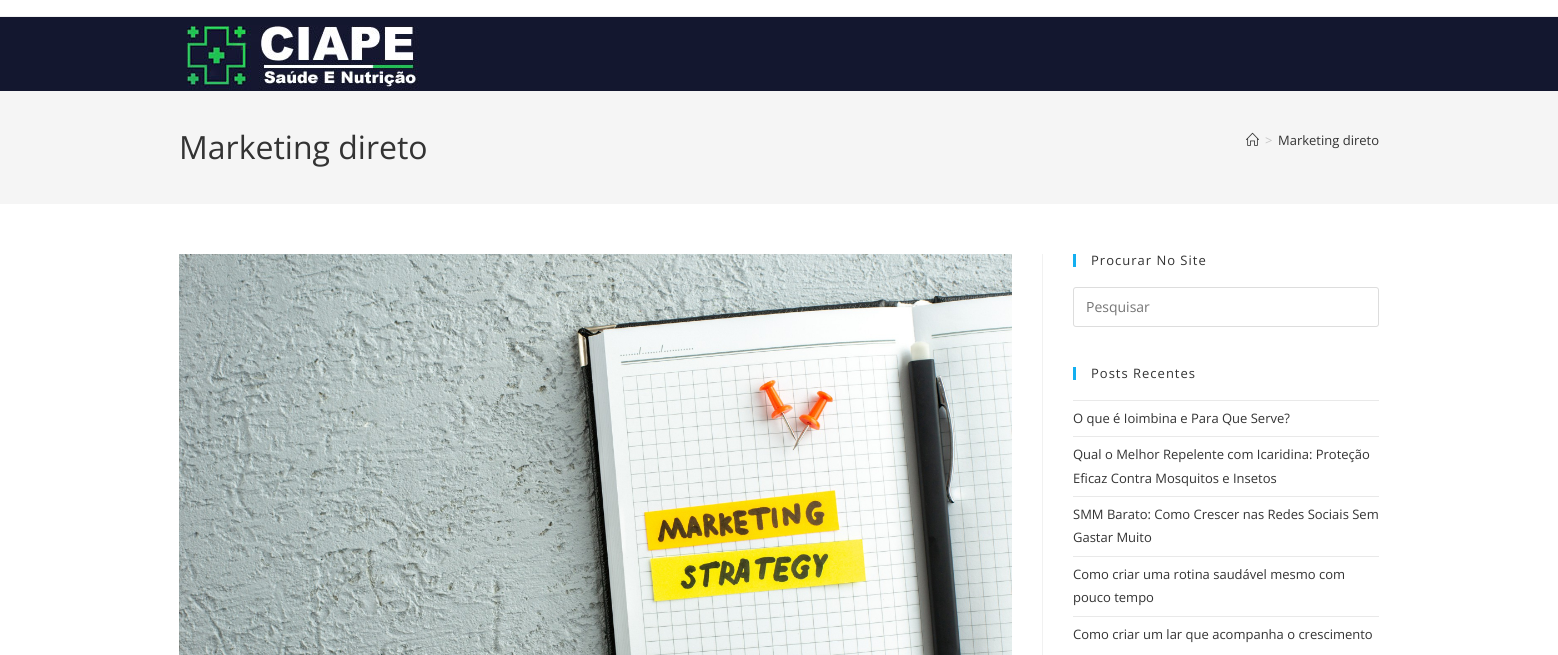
#include <cairo.h>
#include <math.h>
#include <stddef.h>

typedef struct { const char *family; double size; int italic, bold; unsigned color; } style_t;
static cairo_t *ctx;

static void ink(unsigned color) {
    cairo_set_source_rgb(ctx, (color >> 16) / 255.0, (color >> 8 & 255) / 255.0, (color & 255) / 255.0);
}

static void write(double x, double y, const char *s, const style_t *st) {
    cairo_select_font_face(ctx, st->family, st->italic ? CAIRO_FONT_SLANT_ITALIC : CAIRO_FONT_SLANT_NORMAL,
        st->bold ? CAIRO_FONT_WEIGHT_BOLD : CAIRO_FONT_WEIGHT_NORMAL);
    cairo_set_font_size(ctx, st->size);
    ink(st->color);
    cairo_move_to(ctx, x, y);
    cairo_show_text(ctx, s);
}

static void write_spaced(double x, double y, const char *s, double letter, double word) {
    cairo_move_to(ctx, x, y);
    while (*s) {
        char ch[5] = {0};
        int n = 0;
        do ch[n++] = *s++; while ((*s & 0xC0) == 0x80);
        cairo_show_text(ctx, ch);
        cairo_rel_move_to(ctx, letter + word * (*ch == ' '), 0);
    }
}

static void block(double x, double y, double w, double h, unsigned color) {
    ink(color);
    cairo_rectangle(ctx, x, y, w, h);
    cairo_fill(ctx);
}

static void round_path(double x, double y, double w, double h, double r) {
    cairo_new_sub_path(ctx);
    cairo_arc(ctx, x + w - r, y + h - r, r, 0, M_PI / 2);
    cairo_arc(ctx, x + r, y + h - r, r, M_PI / 2, M_PI);
    cairo_arc(ctx, x + r, y + r, r, M_PI, 1.5 * M_PI);
    cairo_arc(ctx, x + w - r, y + r, r, 1.5 * M_PI, 2 * M_PI);
    cairo_close_path(ctx);
}

static void paste(const char *path, double x, double y, double w, double h) {
    cairo_surface_t *image = cairo_image_surface_create_from_png(path);
    cairo_save(ctx);
    cairo_set_source_surface(ctx, image, x, y);
    cairo_rectangle(ctx, x, y, w, h);
    cairo_fill(ctx);
    cairo_restore(ctx);
    cairo_surface_destroy(image);
}

static const style_t s1 = {"Open Sans", 32, 0, 0, 0x333333};
static const style_t s2 = {"Open Sans", 13, 0, 0, 0xc6c6c6};
static const style_t s3 = {"Open Sans", 13, 0, 0, 0x333333};
static const style_t s4 = {"Open Sans", 14, 0, 0, 0x757575};

int main(void) {
    cairo_surface_t *surface = cairo_image_surface_create(CAIRO_FORMAT_RGB24, 1558, 655);
    ctx = cairo_create(surface);
    cairo_font_options_t *options = cairo_font_options_create();
    cairo_font_options_set_hint_metrics(options, CAIRO_HINT_METRICS_OFF);
    cairo_font_options_set_hint_style(options, CAIRO_HINT_STYLE_NONE);
    cairo_set_font_options(ctx, options);
    cairo_set_miter_limit(ctx, 4);
    ink(0xffffff);
    cairo_paint(ctx);
    block(0, 16, 1558, 1, 0xf1f1f1);
    block(0, 17, 1558, 74, 0x13172f);
    paste("pic1.png", 187, 25, 232, 65);
    block(0, 91, 1558, 113, 0xf5f5f5);
    write(179, 159, "Marketing direto", &s1);
    paste("pic2.png", 1246, 132, 13, 14);
    write(1265, 145, ">", &s2);
    write(1278, 145, "Marketing direto", &s3);
    block(1042, 254, 1, 401, 0xf1f1f1);
    paste("pic3.png", 179, 254, 833, 401);
    block(1073, 254, 3, 13, 0x13aff0);
    ink(0x333333);
    write_spaced(1091, 265, "Procurar No Site", 1, 0);
    round_path(1073.5, 287.5, 305, 39, 2.5);
    ink(0xdddddd);
    cairo_set_line_width(ctx, 1);
    cairo_stroke(ctx);
    write(1086, 312, "Pesquisar", &s4);
    block(1073, 367, 3, 13, 0x13aff0);
    cairo_set_font_size(ctx, 13);
    ink(0x333333);
    write_spaced(1091, 378, "Posts Recentes", 1, 0);
    block(1073, 400, 306, 1, 0xe9e9e9);
    block(1073, 436, 306, 1, 0xe9e9e9);
    write(1073, 423, "O que é Ioimbina e Para Que Serve?", &s3);
    block(1073, 496, 306, 1, 0xe9e9e9);
    write(1073, 459, "Qual o Melhor Repelente com Icaridina: Proteção", &s3);
    write(1073, 483, "Eficaz Contra Mosquitos e Insetos", &s3);
    block(1073, 556, 306, 1, 0xe9e9e9);
    write(1073, 519, "SMM Barato: Como Crescer nas Redes Sociais Sem", &s3);
    write(1073, 542, "Gastar Muito", &s3);
    block(1073, 616, 306, 1, 0xe9e9e9);
    write(1073, 579, "Como criar uma rotina saudável mesmo com", &s3);
    write(1073, 602, "pouco tempo", &s3);
    write(1073, 639, "Como criar um lar que acompanha o crescimento", &s3);
    cairo_surface_write_to_png(surface, "screenshot.png");
    cairo_font_options_destroy(options);
    cairo_destroy(ctx);
    cairo_surface_destroy(surface);
    return 0;
}
